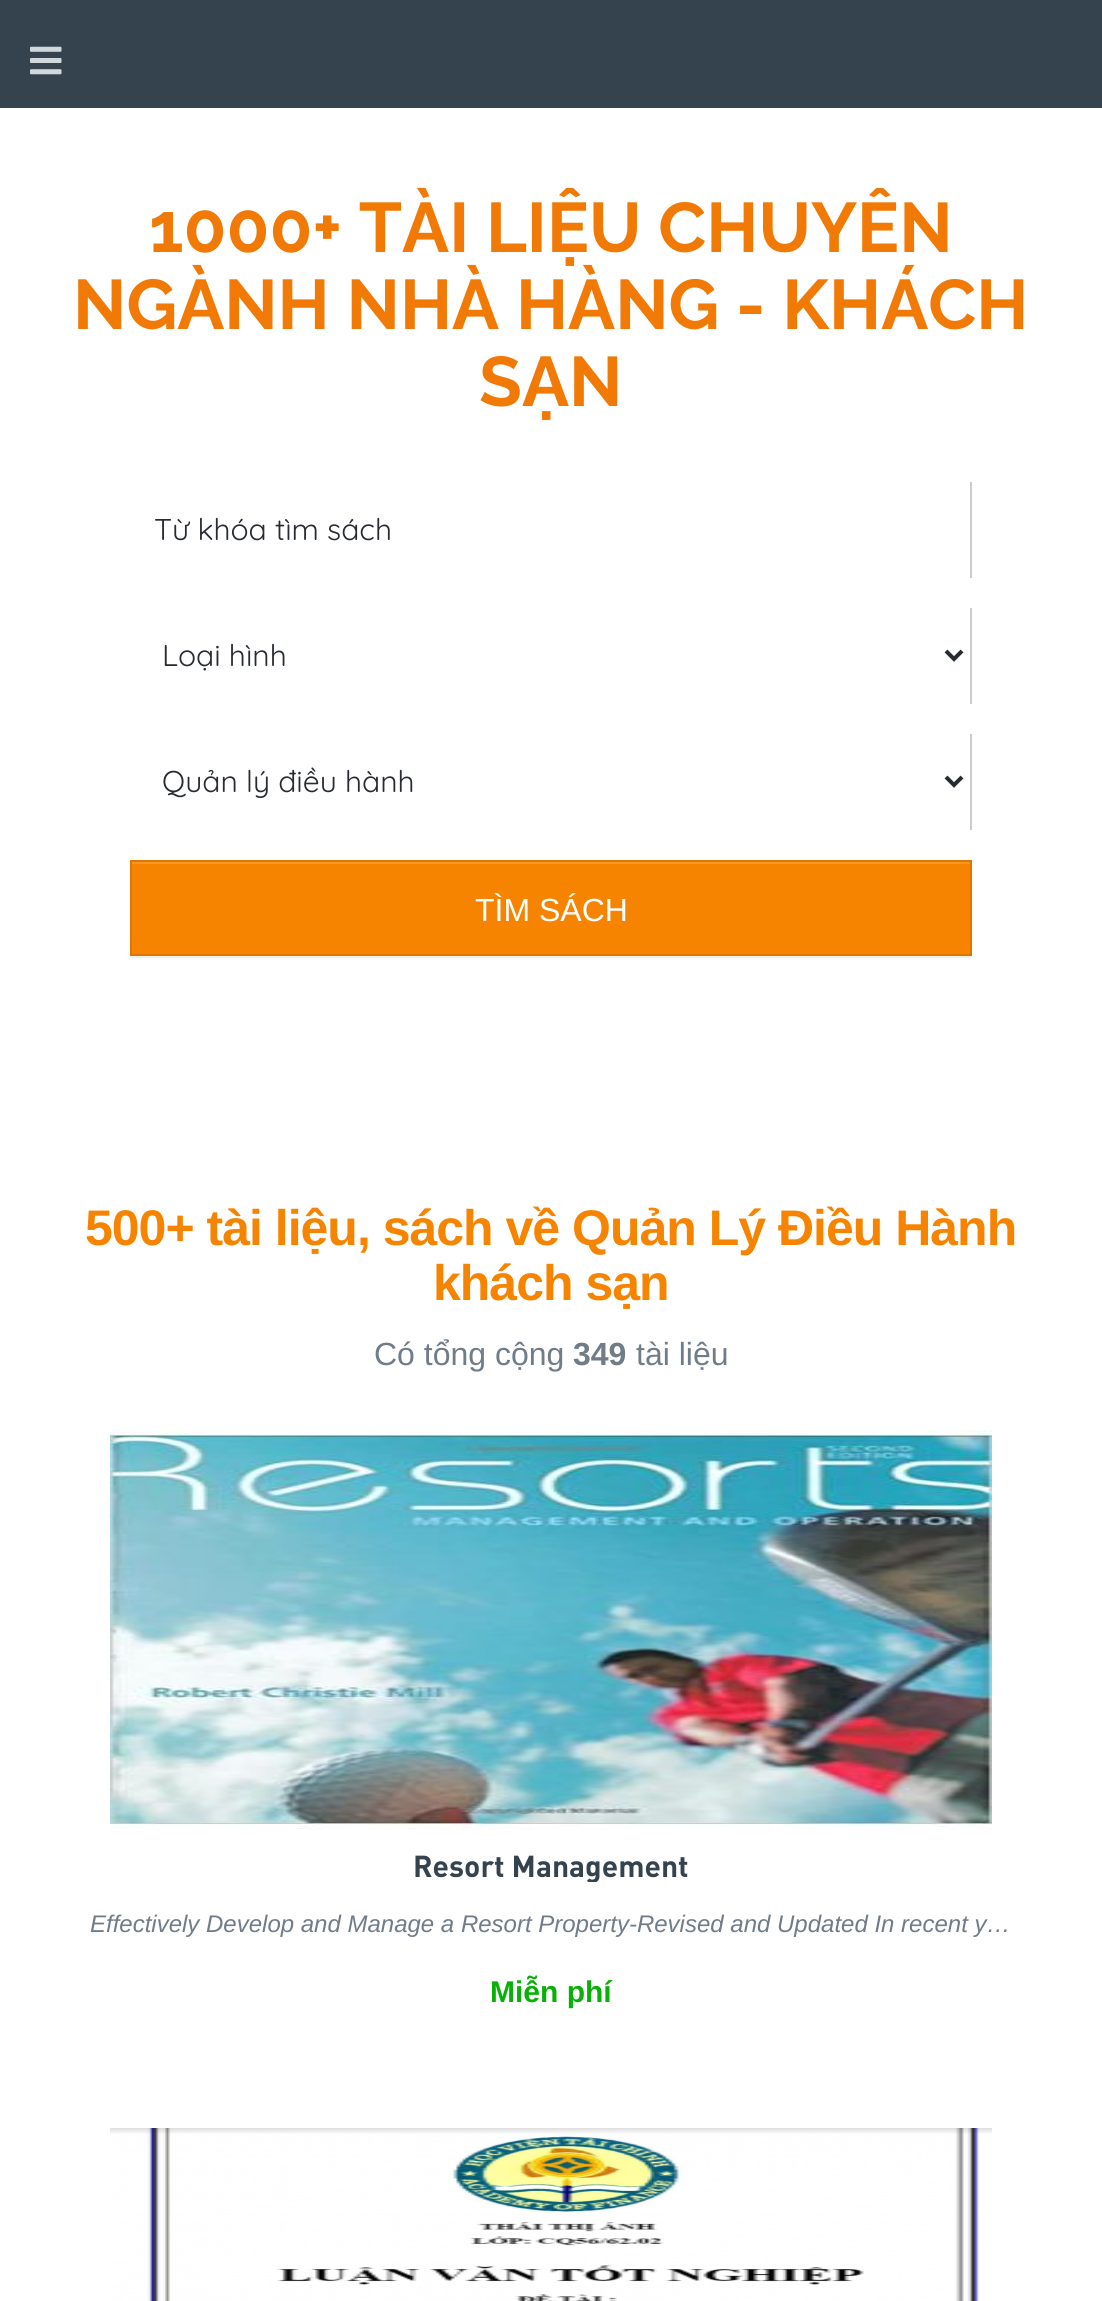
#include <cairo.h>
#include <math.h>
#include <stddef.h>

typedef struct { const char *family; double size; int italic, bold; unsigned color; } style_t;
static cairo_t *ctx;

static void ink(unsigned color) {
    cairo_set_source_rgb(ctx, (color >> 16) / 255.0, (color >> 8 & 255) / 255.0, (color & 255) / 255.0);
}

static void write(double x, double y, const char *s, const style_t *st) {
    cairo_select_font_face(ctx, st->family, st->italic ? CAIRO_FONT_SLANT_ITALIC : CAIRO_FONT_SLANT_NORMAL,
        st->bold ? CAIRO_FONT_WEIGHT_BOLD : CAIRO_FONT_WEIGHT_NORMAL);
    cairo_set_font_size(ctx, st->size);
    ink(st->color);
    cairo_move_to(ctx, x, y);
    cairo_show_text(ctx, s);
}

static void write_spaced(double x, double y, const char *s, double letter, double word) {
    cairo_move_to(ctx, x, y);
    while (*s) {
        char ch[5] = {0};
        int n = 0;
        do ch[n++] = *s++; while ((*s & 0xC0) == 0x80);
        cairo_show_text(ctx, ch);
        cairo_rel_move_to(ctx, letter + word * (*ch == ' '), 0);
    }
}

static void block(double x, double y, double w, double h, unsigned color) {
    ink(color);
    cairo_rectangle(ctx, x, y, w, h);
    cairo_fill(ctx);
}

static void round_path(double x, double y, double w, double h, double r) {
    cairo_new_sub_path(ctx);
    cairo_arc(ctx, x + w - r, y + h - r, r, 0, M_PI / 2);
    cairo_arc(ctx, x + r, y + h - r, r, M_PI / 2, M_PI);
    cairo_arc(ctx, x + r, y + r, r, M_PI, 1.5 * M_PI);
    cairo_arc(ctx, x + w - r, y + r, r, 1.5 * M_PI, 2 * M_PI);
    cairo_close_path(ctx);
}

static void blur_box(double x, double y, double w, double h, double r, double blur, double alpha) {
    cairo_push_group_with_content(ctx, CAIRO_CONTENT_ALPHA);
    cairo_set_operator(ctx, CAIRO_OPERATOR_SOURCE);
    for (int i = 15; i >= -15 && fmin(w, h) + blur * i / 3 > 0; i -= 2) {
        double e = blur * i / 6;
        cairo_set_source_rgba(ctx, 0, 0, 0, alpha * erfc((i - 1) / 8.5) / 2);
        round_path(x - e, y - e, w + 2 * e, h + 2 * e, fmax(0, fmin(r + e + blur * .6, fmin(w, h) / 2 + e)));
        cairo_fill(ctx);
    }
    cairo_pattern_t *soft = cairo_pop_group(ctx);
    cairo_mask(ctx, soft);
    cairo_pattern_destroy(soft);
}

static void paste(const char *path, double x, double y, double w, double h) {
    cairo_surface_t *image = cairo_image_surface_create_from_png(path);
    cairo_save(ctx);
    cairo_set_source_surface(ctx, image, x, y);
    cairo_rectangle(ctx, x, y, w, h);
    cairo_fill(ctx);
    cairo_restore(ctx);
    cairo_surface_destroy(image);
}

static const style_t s1 = {"Raleway", 70, 0, 1, 0xf17a06};
static const style_t s2 = {"Quicksand", 30, 0, 0, 0x282c32};
static const style_t s3 = {"Liberation Sans", 32, 0, 0, 0xffffff};
static const style_t s4 = {"Liberation Sans", 32, 0, 0, 0x707c88};
static const style_t s5 = {"Liberation Sans", 32, 0, 1, 0x707c88};
static const style_t s6 = {"DIN", 30, 0, 1, 0x35434e};
static const style_t s7 = {"Liberation Sans", 24, 1, 0, 0x707c88};
static const style_t s8 = {"Liberation Sans", 30, 0, 1, 0x07b107};

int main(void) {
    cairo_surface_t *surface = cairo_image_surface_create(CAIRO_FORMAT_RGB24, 1102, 2301);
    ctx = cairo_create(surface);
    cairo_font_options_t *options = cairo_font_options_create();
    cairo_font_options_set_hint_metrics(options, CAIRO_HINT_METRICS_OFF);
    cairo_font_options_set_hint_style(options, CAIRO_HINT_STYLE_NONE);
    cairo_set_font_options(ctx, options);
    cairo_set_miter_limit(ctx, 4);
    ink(0xffffff);
    cairo_paint(ctx);
    block(0, 0, 1102, 108, 0x35434e);
    paste("pic1.png", 30, 46, 32, 29);
    write(149, 252, "1000+ TÀI LIỆU CHUYÊN", &s1);
    write(73, 329, "NGÀNH NHÀ HÀNG - KHÁCH", &s1);
    write(479, 406, "SẠN", &s1);
    block(970, 482, 2, 96, 0xcccccc);
    write(154, 540, "Từ khóa tìm sách", &s2);
    block(970, 608, 2, 96, 0xcccccc);
    cairo_new_path(ctx);
    cairo_move_to(ctx, 946, 651);
    cairo_line_to(ctx, 954, 659);
    cairo_line_to(ctx, 962, 651);
    ink(0x282c32);
    cairo_set_line_width(ctx, 4);
    cairo_stroke(ctx);
    write(162, 666, "Loại hình", &s2);
    block(970, 734, 2, 96, 0xcccccc);
    cairo_new_path(ctx);
    cairo_move_to(ctx, 946, 777);
    cairo_line_to(ctx, 954, 785);
    cairo_line_to(ctx, 962, 777);
    ink(0x282c32);
    cairo_stroke(ctx);
    write(162, 792, "Quản lý điều hành", &s2);
    ink(0x000000);
    blur_box(130, 862, 842, 96, 0, 1, 0.07);
    block(132, 864, 838, 90, 0xf68400);
    block(132, 862, 838, 2, 0xf79626);
    cairo_rectangle(ctx, 131, 861, 840, 94);
    ink(0xde7700);
    cairo_set_line_width(ctx, 2);
    cairo_stroke(ctx);
    write(475, 921, "TÌM SÁCH", &s3);
    cairo_select_font_face(ctx, "Liberation Sans", CAIRO_FONT_SLANT_NORMAL, CAIRO_FONT_WEIGHT_BOLD);
    cairo_set_font_size(ctx, 50);
    ink(0xf68400);
    write_spaced(85, 1245, "500+ tài liệu, sách về Quản Lý Điều Hành", -1, 0);
    write_spaced(433, 1300, "khách sạn", -1, 0);
    write(374, 1365, "Có tổng cộng", &s4);
    write(573, 1365, "349", &s5);
    write(636, 1365, "tài liệu", &s4);
    paste("pic2.png", 110, 1430, 882, 400);
    cairo_save(ctx);
    cairo_rectangle(ctx, 90, 1850, 922, 32);
    cairo_clip(ctx);
    write(413, 1877, "Resort Management", &s6);
    cairo_restore(ctx);
    write(90, 1932, "Effectively Develop and Manage a Resort Property-Revised and Updated In recent y…", &s7);
    write(490, 2002, "Miễn phí", &s8);
    paste("pic3.png", 110, 2128, 882, 173);
    cairo_surface_write_to_png(surface, "screenshot.png");
    cairo_font_options_destroy(options);
    cairo_destroy(ctx);
    cairo_surface_destroy(surface);
    return 0;
}
